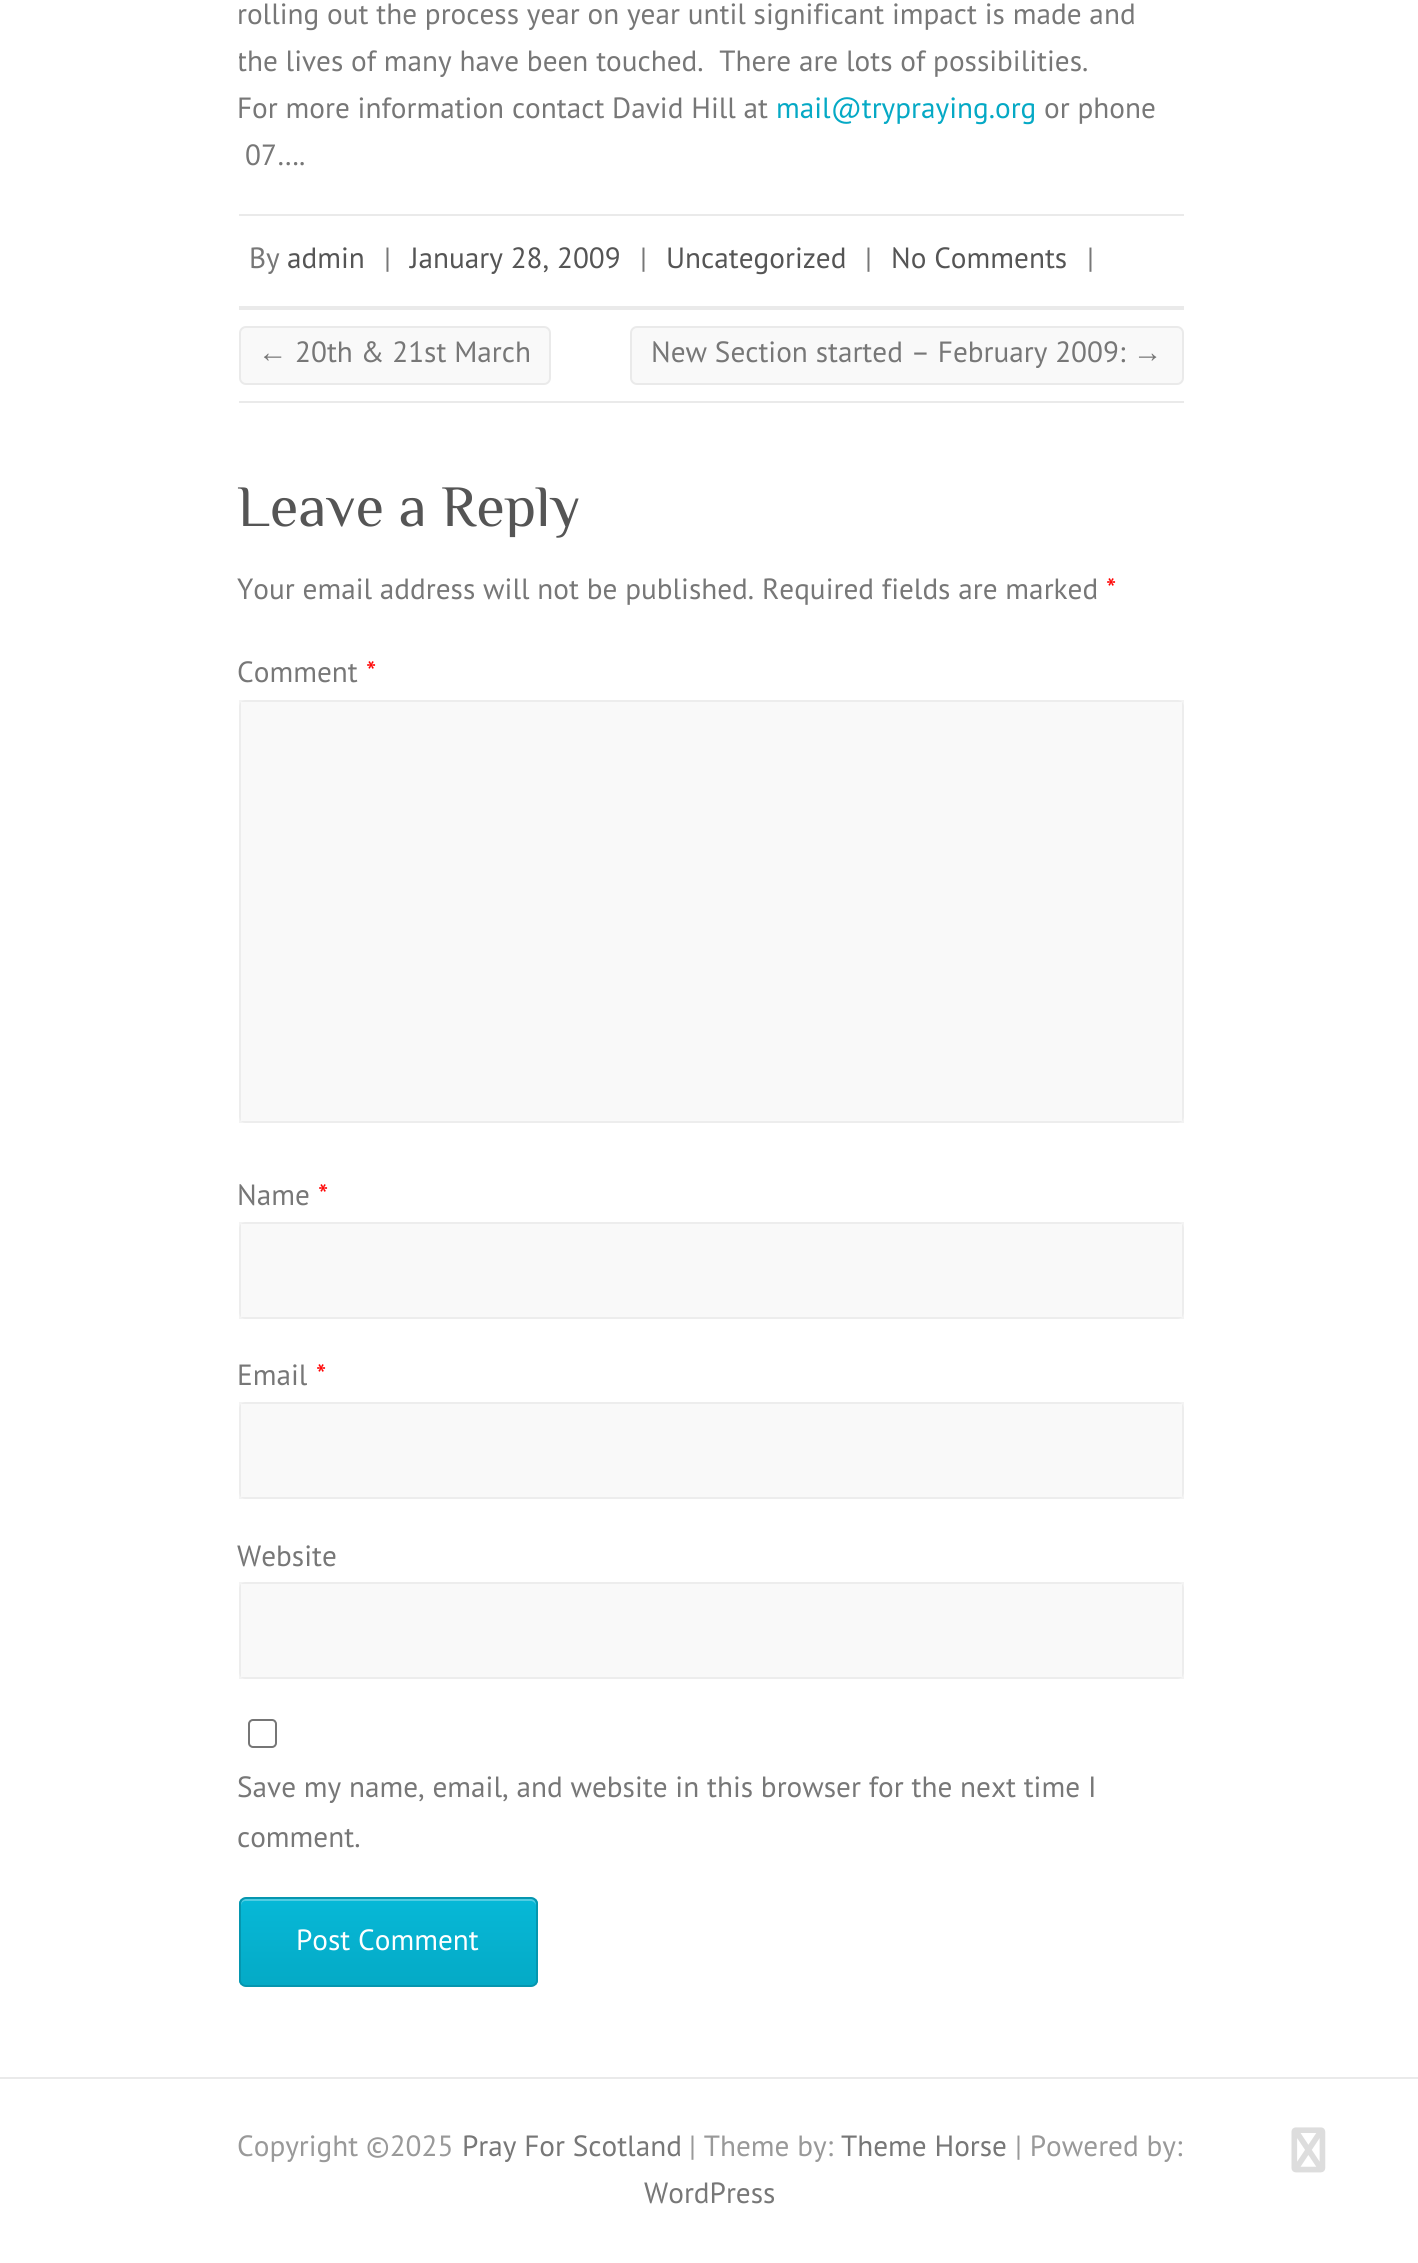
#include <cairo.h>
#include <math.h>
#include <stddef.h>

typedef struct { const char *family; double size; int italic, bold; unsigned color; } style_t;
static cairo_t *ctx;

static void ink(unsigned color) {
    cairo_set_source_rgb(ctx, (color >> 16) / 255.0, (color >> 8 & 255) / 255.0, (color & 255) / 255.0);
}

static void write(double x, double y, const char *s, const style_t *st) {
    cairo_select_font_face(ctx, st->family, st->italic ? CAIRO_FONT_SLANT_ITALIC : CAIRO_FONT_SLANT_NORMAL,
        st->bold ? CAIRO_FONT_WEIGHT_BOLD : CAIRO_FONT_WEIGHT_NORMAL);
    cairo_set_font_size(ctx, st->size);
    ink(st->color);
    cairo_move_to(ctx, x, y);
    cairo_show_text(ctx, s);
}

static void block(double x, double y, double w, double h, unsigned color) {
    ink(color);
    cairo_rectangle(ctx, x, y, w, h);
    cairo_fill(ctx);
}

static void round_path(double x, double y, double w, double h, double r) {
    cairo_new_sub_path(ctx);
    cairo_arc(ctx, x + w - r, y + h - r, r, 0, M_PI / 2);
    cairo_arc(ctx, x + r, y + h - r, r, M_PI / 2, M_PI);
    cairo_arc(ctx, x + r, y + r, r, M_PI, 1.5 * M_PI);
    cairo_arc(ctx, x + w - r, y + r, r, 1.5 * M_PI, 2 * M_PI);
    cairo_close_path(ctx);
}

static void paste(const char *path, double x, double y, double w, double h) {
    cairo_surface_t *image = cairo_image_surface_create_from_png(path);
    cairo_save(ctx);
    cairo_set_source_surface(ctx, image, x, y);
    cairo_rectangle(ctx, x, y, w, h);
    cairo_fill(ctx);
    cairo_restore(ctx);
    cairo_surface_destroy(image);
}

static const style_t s1 = {"PT Sans", 29.25, 0, 0, 0x777777};
static const style_t s2 = {"PT Sans", 29.25, 0, 0, 0x05a9c5};
static const style_t s3 = {"PT Sans", 29.25, 0, 0, 0x555555};
static const style_t s4 = {"Liberation Sans", 29.25, 0, 0, 0x777777};
static const style_t s5 = {"Philosopher", 58.5, 0, 0, 0x555555};
static const style_t s6 = {"PT Sans", 29.25, 0, 0, 0xff0000};
static const style_t s7 = {"PT Sans", 29.25, 0, 0, 0xffffff};
static const style_t s8 = {"PT Sans", 29.25, 0, 0, 0x999999};

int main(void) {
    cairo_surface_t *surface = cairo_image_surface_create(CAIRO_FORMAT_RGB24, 1418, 2263);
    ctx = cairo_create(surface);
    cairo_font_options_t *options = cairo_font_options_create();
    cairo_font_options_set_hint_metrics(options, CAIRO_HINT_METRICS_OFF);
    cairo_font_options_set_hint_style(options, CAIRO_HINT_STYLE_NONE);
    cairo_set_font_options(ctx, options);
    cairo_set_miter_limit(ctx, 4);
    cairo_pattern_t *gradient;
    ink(0xffffff);
    cairo_paint(ctx);
    write(237, 24, "rolling out the process year on year until significant impact is made and", &s1);
    cairo_save(ctx);
    cairo_rectangle(ctx, 239, 0, 945, 214);
    cairo_clip(ctx);
    write(237, 71, "the lives of many have been touched.  There are lots of possibilities.", &s1);
    cairo_restore(ctx);
    write(237, 118, "For more information contact David Hill at", &s1);
    write(776, 118, "mail@trypraying.org", &s2);
    write(1044, 118, "or phone", &s1);
    write(245, 165, "07….", &s1);
    block(239, 214, 945, 2, 0xeaeaea);
    block(239, 306, 945, 4, 0xeaeaea);
    write(249, 268, "By", &s1);
    write(287, 268, "admin", &s3);
    write(384, 268, "|", &s1);
    write(410, 268, "January 28, 2009", &s3);
    write(640, 268, "|", &s1);
    write(666, 268, "Uncategorized", &s3);
    write(865, 268, "|", &s1);
    write(891, 268, "No Comments", &s3);
    write(1087, 268, "|", &s1);
    block(239, 401, 945, 2, 0xeaeaea);
    ink(0xf9f9f9);
    round_path(240, 327, 310, 57, 6);
    cairo_fill_preserve(ctx);
    ink(0xeaeaea);
    cairo_stroke(ctx);
    write(258, 362, "←", &s4);
    write(295, 362, "20th & 21st March", &s1);
    ink(0xf9f9f9);
    round_path(631, 327, 552, 57, 6);
    cairo_fill_preserve(ctx);
    ink(0xeaeaea);
    cairo_stroke(ctx);
    write(651, 362, "New Section started – February 2009:", &s1);
    write(1133, 362, "→", &s4);
    write(237, 526, "Leave a Reply", &s5);
    write(237, 599, "Your email address will not be published. Required fields are marked", &s1);
    write(1106, 599, "*", &s6);
    write(237, 682, "Comment", &s1);
    write(366, 682, "*", &s6);
    ink(0xf9f9f9);
    round_path(239, 700, 945, 423, 7);
    cairo_fill(ctx);
    cairo_rectangle(ctx, 240, 701, 943, 421);
    cairo_set_source_rgba(ctx, 0, 0, 0, 0.05);
    cairo_stroke(ctx);
    write(237, 1205, "Name", &s1);
    write(318, 1205, "*", &s6);
    ink(0xf9f9f9);
    round_path(239, 1222, 945, 97, 7);
    cairo_fill(ctx);
    cairo_rectangle(ctx, 240, 1223, 943, 95);
    cairo_set_source_rgba(ctx, 0, 0, 0, 0.05);
    cairo_stroke(ctx);
    write(237, 1385, "Email", &s1);
    write(316, 1385, "*", &s6);
    ink(0xf9f9f9);
    round_path(239, 1402, 945, 97, 7);
    cairo_fill(ctx);
    cairo_rectangle(ctx, 240, 1403, 943, 95);
    cairo_set_source_rgba(ctx, 0, 0, 0, 0.05);
    cairo_stroke(ctx);
    write(237, 1566, "Website", &s1);
    ink(0xf9f9f9);
    round_path(239, 1582, 945, 97, 7);
    cairo_fill(ctx);
    cairo_rectangle(ctx, 240, 1583, 943, 95);
    cairo_set_source_rgba(ctx, 0, 0, 0, 0.05);
    cairo_stroke(ctx);
    round_path(249, 1720, 27, 27, 4);
    ink(0x767676);
    cairo_stroke(ctx);
    write(237, 1797, "Save my name, email, and website in this browser for the next time I", &s1);
    write(237, 1847, "comment.", &s1);
    cairo_save(ctx);
    round_path(239, 1897, 299, 90, 7);
    cairo_clip(ctx);
    gradient = cairo_pattern_create_linear(388, 1899, 388, 1985);
    cairo_pattern_add_color_stop_rgba(gradient, 0, 0.024, 0.722, 0.843, 1);
    cairo_pattern_add_color_stop_rgba(gradient, 1, 0.02, 0.667, 0.776, 1);
    cairo_set_source(ctx, gradient);
    cairo_pattern_destroy(gradient);
    cairo_rectangle(ctx, 239, 1899, 299, 86);
    cairo_fill(ctx);
    cairo_restore(ctx);
    ink(0x51cde3);
    cairo_new_path(ctx);
    cairo_move_to(ctx, 245, 1901);
    cairo_line_to(ctx, 531, 1901);
    cairo_curve_to(ctx, 533, 1901, 536, 1903, 536, 1906);
    cairo_curve_to(ctx, 536, 1903, 535, 1899, 531, 1899);
    cairo_line_to(ctx, 245, 1899);
    cairo_curve_to(ctx, 241, 1900, 241, 1903, 241, 1906);
    cairo_curve_to(ctx, 241, 1903, 243, 1901, 245, 1901);
    cairo_close_path(ctx);
    cairo_fill(ctx);
    round_path(240, 1898, 297, 88, 6);
    ink(0x0596af);
    cairo_stroke(ctx);
    write(296, 1950, "Post Comment", &s7);
    block(0, 2077, 1418, 2, 0xeaeaea);
    write(237, 2156, "Copyright ©2025", &s8);
    write(462, 2156, "Pray For Scotland", &s1);
    write(689, 2156, "| Theme by:", &s8);
    write(841, 2156, "Theme Horse", &s1);
    write(1015, 2156, "| Powered by:", &s8);
    write(644, 2203, "WordPress", &s1);
    paste("pic1.png", 1291, 2127, 35, 46);
    cairo_surface_write_to_png(surface, "screenshot.png");
    cairo_font_options_destroy(options);
    cairo_destroy(ctx);
    cairo_surface_destroy(surface);
    return 0;
}
